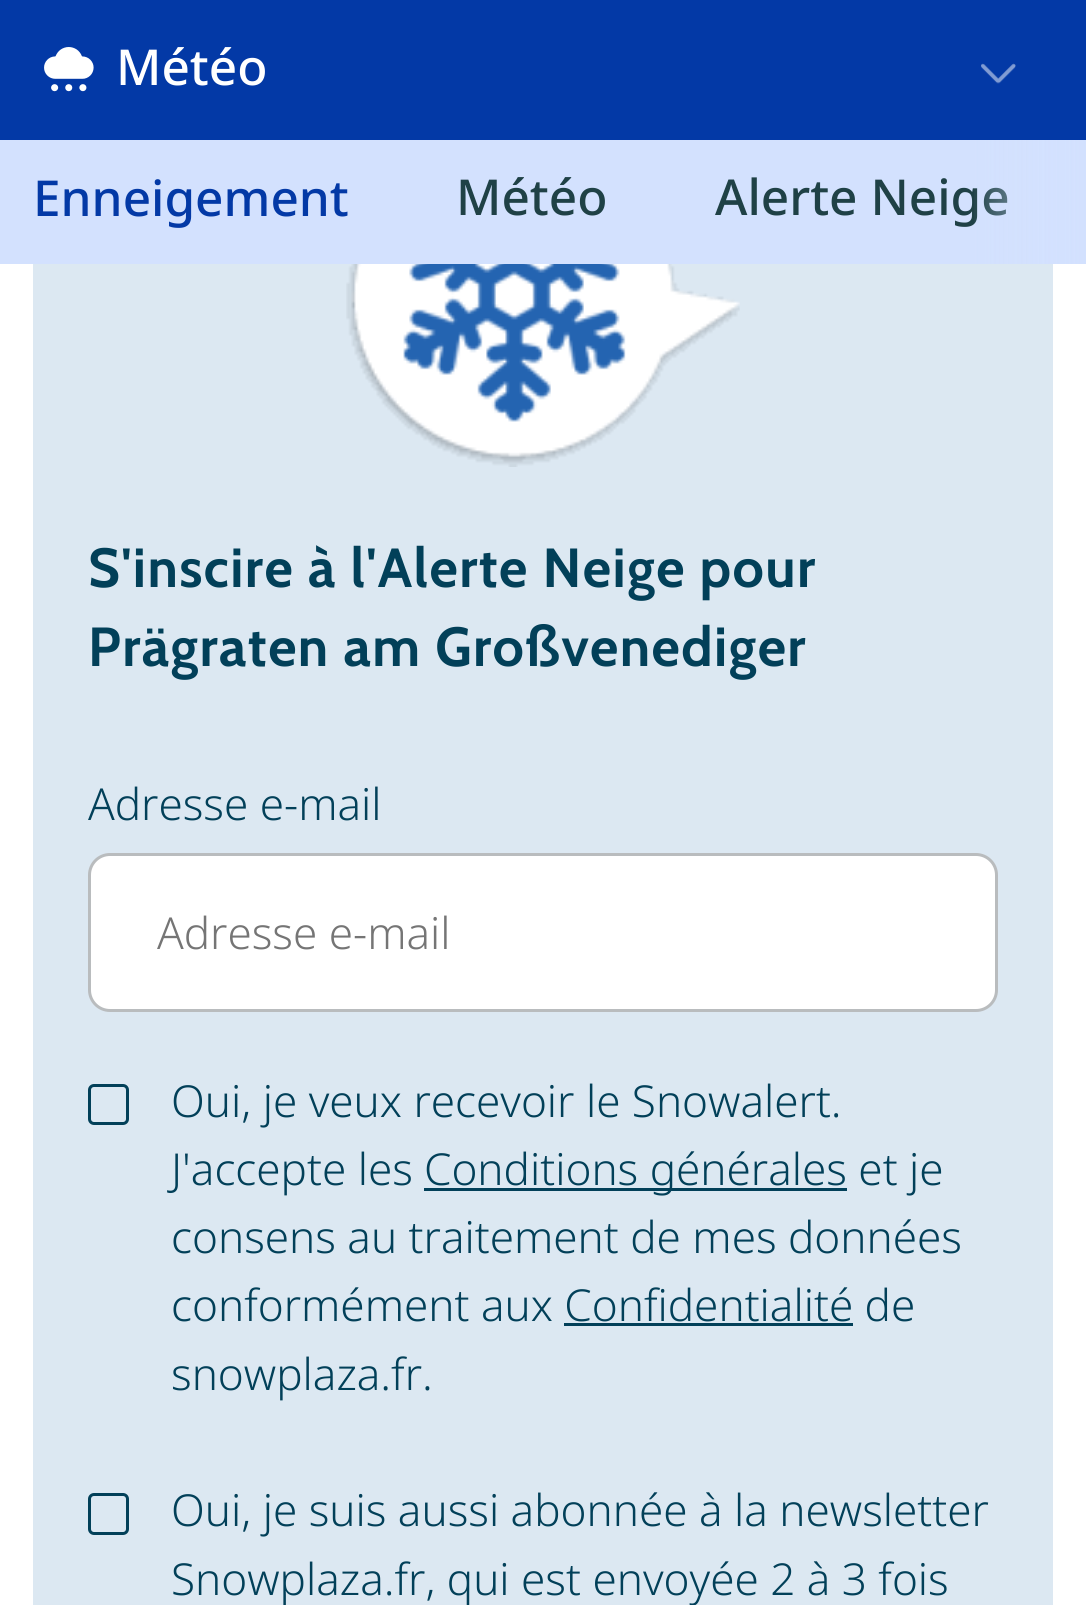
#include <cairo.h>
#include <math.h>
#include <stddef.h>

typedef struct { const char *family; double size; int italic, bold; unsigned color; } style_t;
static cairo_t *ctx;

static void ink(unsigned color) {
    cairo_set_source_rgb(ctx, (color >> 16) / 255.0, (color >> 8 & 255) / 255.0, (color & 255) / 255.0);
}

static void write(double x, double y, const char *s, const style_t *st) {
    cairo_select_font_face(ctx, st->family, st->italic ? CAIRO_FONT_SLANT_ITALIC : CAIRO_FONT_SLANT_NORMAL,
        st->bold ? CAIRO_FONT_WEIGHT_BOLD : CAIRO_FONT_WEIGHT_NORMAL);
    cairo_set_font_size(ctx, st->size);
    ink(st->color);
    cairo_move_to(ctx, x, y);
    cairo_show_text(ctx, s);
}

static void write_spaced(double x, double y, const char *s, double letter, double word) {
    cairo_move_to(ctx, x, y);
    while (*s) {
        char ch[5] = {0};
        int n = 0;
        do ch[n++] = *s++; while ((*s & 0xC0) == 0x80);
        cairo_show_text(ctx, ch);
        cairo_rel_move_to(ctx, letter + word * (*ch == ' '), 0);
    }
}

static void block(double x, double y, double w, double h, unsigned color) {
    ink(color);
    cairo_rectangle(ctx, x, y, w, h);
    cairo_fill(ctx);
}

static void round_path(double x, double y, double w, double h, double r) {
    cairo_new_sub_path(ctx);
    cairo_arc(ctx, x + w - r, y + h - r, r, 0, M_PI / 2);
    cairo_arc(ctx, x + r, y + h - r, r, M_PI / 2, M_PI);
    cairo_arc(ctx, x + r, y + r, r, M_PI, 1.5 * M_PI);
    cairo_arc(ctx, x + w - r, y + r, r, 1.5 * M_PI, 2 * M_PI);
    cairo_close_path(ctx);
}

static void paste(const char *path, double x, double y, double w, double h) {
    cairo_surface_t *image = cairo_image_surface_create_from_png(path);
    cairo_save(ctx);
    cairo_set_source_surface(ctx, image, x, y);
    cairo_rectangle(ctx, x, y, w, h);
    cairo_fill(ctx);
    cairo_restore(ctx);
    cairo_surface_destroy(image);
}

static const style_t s1 = {"Noto Sans Medium", 49.5, 0, 0, 0xffffff};
static const style_t s2 = {"Noto Sans Medium", 49.5, 0, 0, 0x0339a6};
static const style_t s3 = {"Noto Sans Medium", 49.5, 0, 0, 0x1f4146};
static const style_t s4 = {"Noto Sans Light", 44, 0, 0, 0x024059};
static const style_t s5 = {"Noto Sans Light", 44, 0, 0, 0x757575};

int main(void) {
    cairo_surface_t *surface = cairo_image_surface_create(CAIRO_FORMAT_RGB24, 1086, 1605);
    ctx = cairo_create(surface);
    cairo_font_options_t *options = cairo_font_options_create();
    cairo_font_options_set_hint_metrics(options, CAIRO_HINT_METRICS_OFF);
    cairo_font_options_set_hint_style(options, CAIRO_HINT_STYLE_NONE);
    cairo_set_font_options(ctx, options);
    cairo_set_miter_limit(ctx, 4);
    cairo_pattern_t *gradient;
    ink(0xffffff);
    cairo_paint(ctx);
    block(0, 0, 1086, 140, 0x0339a6);
    paste("pic1.png", 44, 47, 50, 45);
    write(116, 85, "Météo", &s1);
    paste("pic2.png", 981, 63, 35, 21);
    block(0, 140, 1085, 124, 0xd3e1fe);
    write(33, 216, "Enneigement", &s2);
    write(456, 215, "Météo", &s3);
    write(715, 215, "Alerte Neige", &s3);
    gradient = cairo_pattern_create_linear(1086, 199, 960, 199);
    cairo_pattern_add_color_stop_rgba(gradient, 0, 0.827, 0.882, 0.996, 1);
    cairo_pattern_add_color_stop_rgba(gradient, 0.91, 0.827, 0.882, 0.996, 0);
    cairo_set_source(ctx, gradient);
    cairo_pattern_destroy(gradient);
    cairo_rectangle(ctx, 974, 140, 112, 124);
    cairo_fill(ctx);
    block(33, 264, 1020, 1341, 0xdce8f2);
    paste("pic3.png", 346, 264, 394, 203);
    cairo_select_font_face(ctx, "Cabin", CAIRO_FONT_SLANT_NORMAL, CAIRO_FONT_WEIGHT_BOLD);
    cairo_set_font_size(ctx, 55);
    ink(0x024059);
    write_spaced(88, 587, "S'inscire à l'Alerte Neige pour", 1.4, 0);
    write_spaced(88, 666, "Prägraten am Großvenediger", 1.4, 0);
    write(88, 820, "Adresse e-mail", &s4);
    ink(0xffffff);
    round_path(89.5, 854.5, 907, 156, 20.5);
    cairo_fill_preserve(ctx);
    ink(0xb9bcbe);
    cairo_set_line_width(ctx, 3);
    cairo_stroke(ctx);
    write(157, 949, "Adresse e-mail", &s5);
    round_path(89.5, 1085.5, 38, 38, 4.5);
    ink(0x024059);
    cairo_stroke(ctx);
    write(171, 1117, "Oui, je veux recevoir le Snowalert.", &s4);
    write(171, 1185, "J'accepte les", &s4);
    block(424, 1188, 423, 3, 0x024059);
    write(424, 1185, "Conditions générales et je", &s4);
    write(171, 1253, "consens au traitement de mes données", &s4);
    write(171, 1321, "conformément aux Confidentialité de", &s4);
    block(564, 1323, 289, 3, 0x024059);
    write(171, 1390, "snowplaza.fr.", &s4);
    round_path(89.5, 1494.5, 38, 39, 4.5);
    cairo_stroke(ctx);
    write(171, 1526, "Oui, je suis aussi abonnée à la newsletter", &s4);
    write(171, 1595, "Snowplaza.fr, qui est envoyée 2 à 3 fois", &s4);
    cairo_surface_write_to_png(surface, "screenshot.png");
    cairo_font_options_destroy(options);
    cairo_destroy(ctx);
    cairo_surface_destroy(surface);
    return 0;
}
